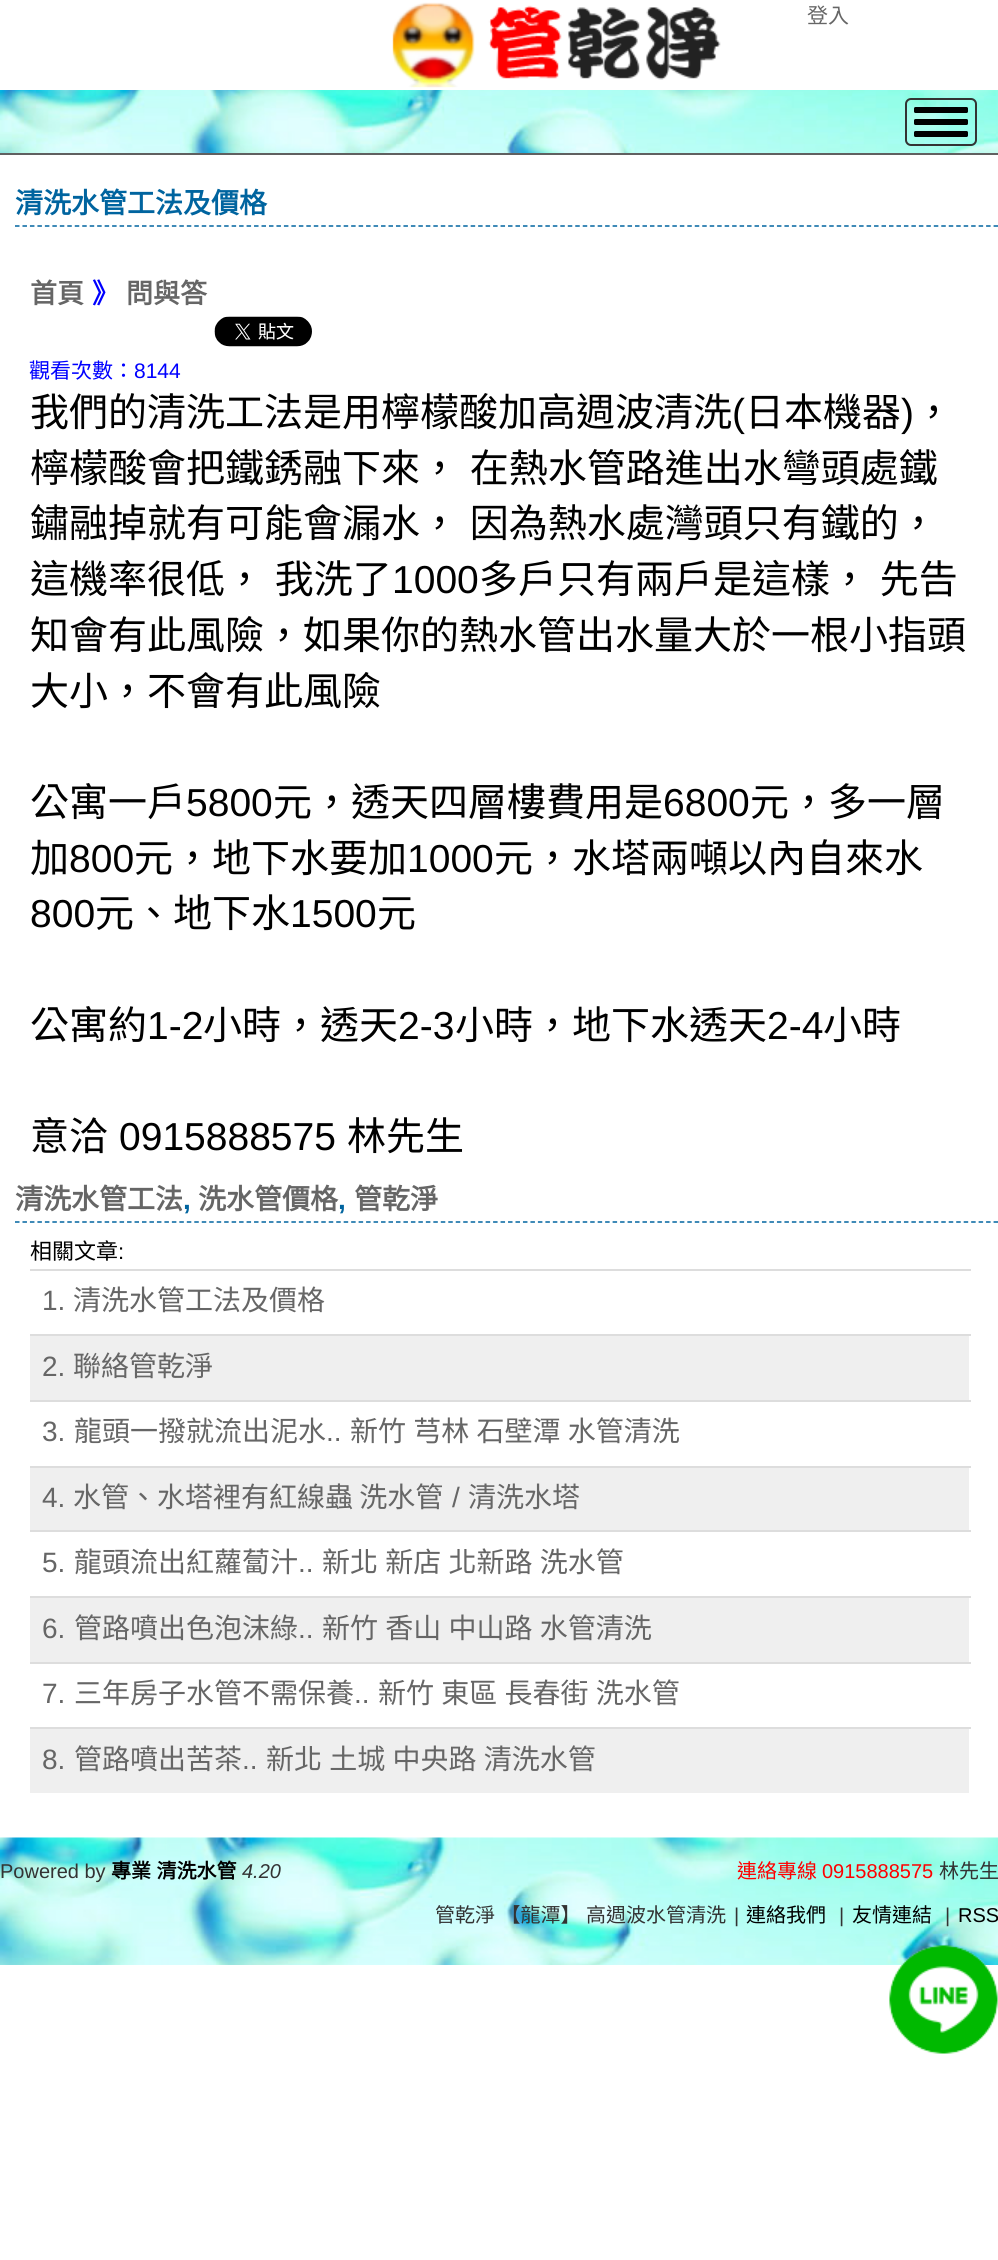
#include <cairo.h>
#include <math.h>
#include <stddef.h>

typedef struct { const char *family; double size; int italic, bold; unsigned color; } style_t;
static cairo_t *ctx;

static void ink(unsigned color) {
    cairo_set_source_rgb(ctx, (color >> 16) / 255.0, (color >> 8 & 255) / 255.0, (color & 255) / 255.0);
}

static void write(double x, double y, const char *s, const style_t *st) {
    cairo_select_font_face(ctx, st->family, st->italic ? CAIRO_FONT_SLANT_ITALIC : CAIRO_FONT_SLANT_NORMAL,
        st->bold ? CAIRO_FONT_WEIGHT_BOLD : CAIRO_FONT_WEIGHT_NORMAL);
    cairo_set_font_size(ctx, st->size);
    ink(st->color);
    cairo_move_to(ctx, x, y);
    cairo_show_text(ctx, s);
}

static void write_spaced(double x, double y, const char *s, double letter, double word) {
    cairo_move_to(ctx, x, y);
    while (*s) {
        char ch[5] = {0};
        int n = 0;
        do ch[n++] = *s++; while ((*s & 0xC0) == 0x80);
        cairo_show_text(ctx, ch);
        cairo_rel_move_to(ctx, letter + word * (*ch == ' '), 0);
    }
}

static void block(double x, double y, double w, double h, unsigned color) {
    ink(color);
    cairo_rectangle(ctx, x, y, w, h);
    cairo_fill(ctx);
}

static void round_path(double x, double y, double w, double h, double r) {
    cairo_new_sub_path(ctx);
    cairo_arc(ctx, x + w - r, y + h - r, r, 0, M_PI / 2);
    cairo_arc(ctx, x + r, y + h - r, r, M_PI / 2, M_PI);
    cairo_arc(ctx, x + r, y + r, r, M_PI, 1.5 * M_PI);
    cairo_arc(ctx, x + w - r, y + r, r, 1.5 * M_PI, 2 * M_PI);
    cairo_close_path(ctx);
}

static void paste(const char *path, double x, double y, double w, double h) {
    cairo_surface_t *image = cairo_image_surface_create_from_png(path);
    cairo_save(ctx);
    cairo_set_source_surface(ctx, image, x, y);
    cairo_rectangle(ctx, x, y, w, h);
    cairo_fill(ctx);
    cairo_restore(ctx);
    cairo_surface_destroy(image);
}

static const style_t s1 = {"Noto Sans CJK TC", 21, 0, 0, 0x666666};
static const style_t s2 = {"Noto Sans CJK TC", 28, 0, 1, 0x00649f};
static const style_t s3 = {"Noto Sans CJK TC", 27, 0, 1, 0x666666};
static const style_t s4 = {"Noto Sans CJK TC", 27, 0, 1, 0x0000ff};
static const style_t s5 = {"Noto Sans CJK TC", 21, 0, 0, 0x0000ff};
static const style_t s6 = {"Liberation Sans", 21, 0, 0, 0x0000ff};
static const style_t s7 = {"Noto Sans CJK TC", 39, 0, 0, 0x000000};
static const style_t s8 = {"Liberation Sans", 39, 0, 0, 0x000000};
static const style_t s9 = {"Noto Sans CJK TC", 28, 0, 1, 0x666666};
static const style_t s10 = {"Liberation Sans", 28, 0, 1, 0x00649f};
static const style_t s11 = {"Noto Sans CJK TC", 22, 0, 0, 0x000000};
static const style_t s12 = {"Liberation Sans", 22, 0, 0, 0x000000};
static const style_t s13 = {"Liberation Sans", 28, 0, 0, 0x666666};
static const style_t s14 = {"Noto Sans CJK TC", 28, 0, 0, 0x666666};
static const style_t s15 = {"Liberation Sans", 20, 0, 0, 0x333333};
static const style_t s16 = {"Liberation Sans", 20, 1, 0, 0x333333};
static const style_t s17 = {"Noto Sans CJK TC", 20, 0, 0, 0xff0000};
static const style_t s18 = {"Liberation Sans", 20, 0, 0, 0xff0000};
static const style_t s19 = {"Noto Sans CJK TC", 20, 0, 0, 0x333333};
static const style_t s20 = {"Noto Sans CJK TC", 20, 0, 0, 0x000000};
static const style_t s21 = {"Liberation Sans", 20, 0, 0, 0x000000};

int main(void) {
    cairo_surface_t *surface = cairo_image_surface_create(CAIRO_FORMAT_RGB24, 998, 2260);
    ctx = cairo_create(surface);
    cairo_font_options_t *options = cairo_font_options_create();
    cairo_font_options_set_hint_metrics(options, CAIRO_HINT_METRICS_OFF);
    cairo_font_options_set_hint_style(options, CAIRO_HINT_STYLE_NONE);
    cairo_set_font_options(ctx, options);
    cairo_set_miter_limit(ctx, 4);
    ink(0xffffff);
    cairo_paint(ctx);
    paste("pic1.png", 0, 90, 998, 63);
    block(0, 153, 998, 2, 0x606060);
    paste("pic2.png", 392, 2, 329, 86);
    write(807, 23, "登入", &s1);
    round_path(906, 99, 70, 46, 5);
    ink(0x333333);
    cairo_stroke(ctx);
    ink(0x000000);
    round_path(914, 107, 54, 6, 1.5);
    cairo_fill(ctx);
    round_path(914, 119, 54, 6, 1.5);
    cairo_fill(ctx);
    round_path(914, 131, 54, 6, 1.5);
    cairo_fill(ctx);
    cairo_new_path(ctx);
    cairo_move_to(ctx, 15, 226);
    cairo_line_to(ctx, 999, 226);
    ink(0x00649f);
    cairo_set_line_width(ctx, 1.5);
    cairo_set_dash(ctx, (double[]){4.5, 2.97}, 2, 0);
    cairo_stroke(ctx);
    write(15, 213, "清洗水管工法及價格", &s2);
    write(30, 303, "首頁", &s3);
    write(92, 303, "》", &s4);
    write(126, 303, "問與答", &s3);
    paste("pic3.png", 214, 316, 98, 31);
    write(29, 378, "觀看次數：", &s5);
    write(134, 378, "8144", &s6);
    write(30, 426, "我們的清洗工法是用檸檬酸加高週波清洗", &s7);
    write(732, 426, "(", &s8);
    write(745, 426, "日本機器", &s7);
    write(901, 426, ")", &s8);
    write(914, 426, "，", &s7);
    write_spaced(30, 482, "檸檬酸會把鐵銹融下來， 在熱水管路進出水彎頭處鐵", 0, 2);
    write_spaced(30, 537, "鏽融掉就有可能會漏水， 因為熱水處灣頭只有鐵的，", 0, 2);
    write_spaced(30, 593, "這機率很低， 我洗了", 0, 2);
    write(392, 593, "1000", &s8);
    cairo_select_font_face(ctx, "Noto Sans CJK TC", CAIRO_FONT_SLANT_NORMAL, CAIRO_FONT_WEIGHT_NORMAL);
    write_spaced(479, 593, "多戶只有兩戶是這樣， 先告", 0, 2);
    write(30, 649, "知會有此風險，如果你的熱水管出水量大於一根小指頭", &s7);
    write(30, 705, "大小，不會有此風險", &s7);
    write(30, 816, "公寓一戶", &s7);
    write(186, 816, "5800", &s8);
    write(273, 816, "元，透天四層樓費用是", &s7);
    write(663, 816, "6800", &s8);
    write(750, 816, "元，多一層", &s7);
    write(30, 872, "加", &s7);
    write(69, 872, "800", &s8);
    write(134, 872, "元，地下水要加", &s7);
    write(407, 872, "1000", &s8);
    write(494, 872, "元，水塔兩噸以內自來水", &s7);
    write(30, 927, "800", &s8);
    write(95, 927, "元、地下水", &s7);
    write(290, 927, "1500", &s8);
    write(377, 927, "元", &s7);
    write(30, 1039, "公寓約", &s7);
    write(147, 1039, "1-2", &s8);
    write(203, 1039, "小時，透天", &s7);
    write(398, 1039, "2-3", &s8);
    write(455, 1039, "小時，地下水透天", &s7);
    write(767, 1039, "2-4", &s8);
    write(823, 1039, "小時", &s7);
    write(30, 1150, "意洽", &s7);
    write(119, 1150, "0915888575", &s8);
    write(347, 1150, "林先生", &s7);
    cairo_new_path(ctx);
    cairo_move_to(ctx, 15, 1222);
    cairo_line_to(ctx, 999, 1222);
    ink(0x00649f);
    cairo_stroke(ctx);
    write(15, 1209, "清洗水管工法", &s9);
    write(183, 1209, ",", &s10);
    write(198, 1209, "洗水管價格", &s9);
    write(338, 1209, ",", &s10);
    write(354, 1209, "管乾淨", &s9);
    write(30, 1259, "相關文章", &s11);
    write(118, 1259, ":", &s12);
    block(30, 1269, 941, 2, 0xdddddd);
    write(42, 1310, "1.", &s13);
    write(73, 1310, "清洗水管工法及價格", &s14);
    block(30, 1336, 939, 64, 0xefefef);
    block(30, 1334, 941, 2, 0xdddddd);
    write(42, 1376, "2.", &s13);
    write(73, 1376, "聯絡管乾淨", &s14);
    block(30, 1400, 941, 2, 0xdddddd);
    write(42, 1441, "3.", &s13);
    write(74, 1441, "龍頭一撥就流出泥水", &s14);
    write(326, 1441, "..", &s13);
    cairo_select_font_face(ctx, "Noto Sans CJK TC", CAIRO_FONT_SLANT_NORMAL, CAIRO_FONT_WEIGHT_NORMAL);
    write_spaced(350, 1441, "新竹 芎林 石壁潭 水管清洗", 0, 1);
    block(30, 1468, 939, 62, 0xefefef);
    block(30, 1466, 941, 2, 0xdddddd);
    write(42, 1507, "4.", &s13);
    write(73, 1507, "水管、水塔裡有紅線蟲 洗水管", &s14);
    write(452, 1507, "/", &s13);
    write(468, 1507, "清洗水塔", &s14);
    block(30, 1530, 941, 2, 0xdddddd);
    write(42, 1572, "5.", &s13);
    write(74, 1572, "龍頭流出紅蘿蔔汁", &s14);
    write(298, 1572, "..", &s13);
    cairo_select_font_face(ctx, "Noto Sans CJK TC", CAIRO_FONT_SLANT_NORMAL, CAIRO_FONT_WEIGHT_NORMAL);
    write_spaced(322, 1572, "新北 新店 北新路 洗水管", 0, 1);
    block(30, 1598, 939, 64, 0xefefef);
    block(30, 1596, 941, 2, 0xdddddd);
    write(42, 1638, "6.", &s13);
    write(74, 1638, "管路噴出色泡沫綠", &s14);
    write(298, 1638, "..", &s13);
    cairo_select_font_face(ctx, "Noto Sans CJK TC", CAIRO_FONT_SLANT_NORMAL, CAIRO_FONT_WEIGHT_NORMAL);
    write_spaced(322, 1638, "新竹 香山 中山路 水管清洗", 0, 1);
    block(30, 1662, 941, 2, 0xdddddd);
    write(42, 1703, "7.", &s13);
    write(74, 1703, "三年房子水管不需保養", &s14);
    write(354, 1703, "..", &s13);
    cairo_select_font_face(ctx, "Noto Sans CJK TC", CAIRO_FONT_SLANT_NORMAL, CAIRO_FONT_WEIGHT_NORMAL);
    write_spaced(378, 1703, "新竹 東區 長春街 洗水管", 0, 1);
    block(30, 1729, 939, 64, 0xefefef);
    block(30, 1727, 941, 2, 0xdddddd);
    write(42, 1769, "8.", &s13);
    write(74, 1769, "管路噴出苦茶", &s14);
    write(242, 1769, "..", &s13);
    cairo_select_font_face(ctx, "Noto Sans CJK TC", CAIRO_FONT_SLANT_NORMAL, CAIRO_FONT_WEIGHT_NORMAL);
    write_spaced(266, 1769, "新北 土城 中央路 清洗水管", 0, 1);
    paste("pic4.png", 0, 1837, 998, 128);
    write(0, 1878, "Powered by", &s15);
    cairo_select_font_face(ctx, "Noto Sans CJK TC", CAIRO_FONT_SLANT_NORMAL, CAIRO_FONT_WEIGHT_BOLD);
    ink(0x000000);
    write_spaced(111, 1878, "專業 清洗水管", 0, 1);
    write(242, 1878, "4.20", &s16);
    write(737, 1878, "連絡專線", &s17);
    write(822, 1878, "0915888575", &s18);
    write(939, 1878, "林先生", &s19);
    write_spaced(435, 1922, "管乾淨 【龍潭】", 0, 1);
    write(586, 1922, "高週波水管清洗", &s19);
    write(734, 1922, "|", &s15);
    write(746, 1922, "連絡我們", &s20);
    write(839, 1922, "|", &s15);
    write(852, 1922, "友情連結", &s20);
    write(945, 1922, "|", &s15);
    write(958, 1922, "RSS", &s21);
    paste("pic5.png", 889, 1945, 109, 109);
    cairo_surface_write_to_png(surface, "screenshot.png");
    cairo_font_options_destroy(options);
    cairo_destroy(ctx);
    cairo_surface_destroy(surface);
    return 0;
}
